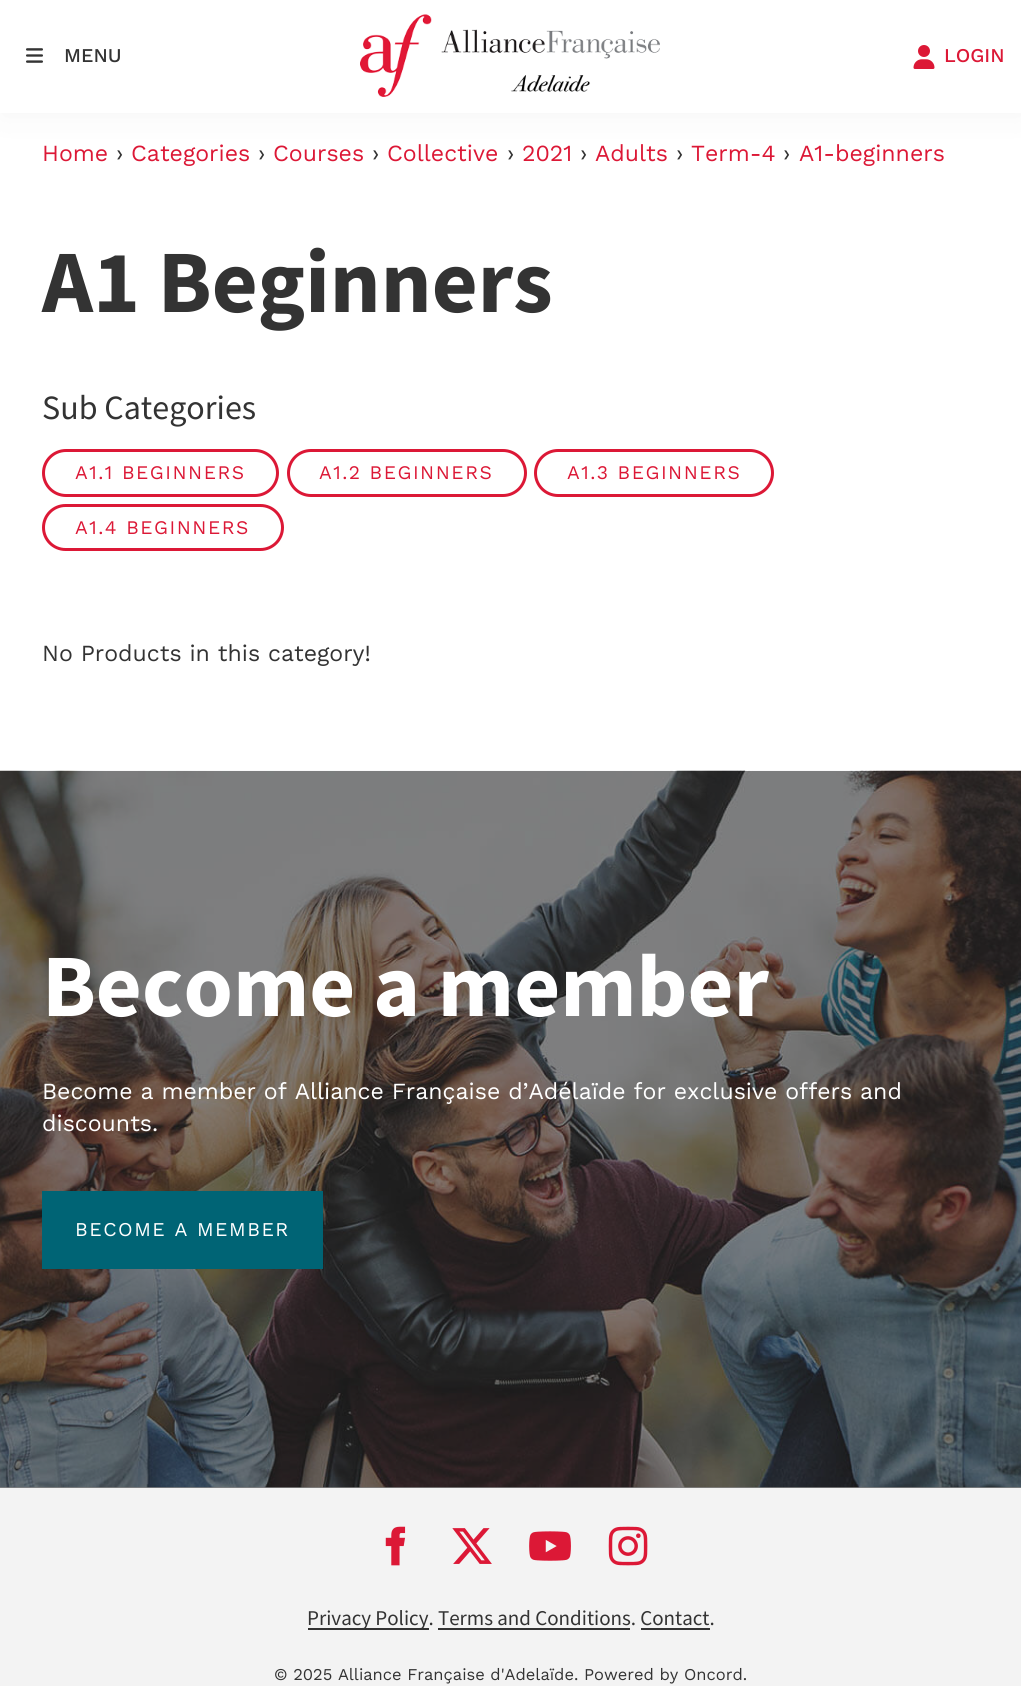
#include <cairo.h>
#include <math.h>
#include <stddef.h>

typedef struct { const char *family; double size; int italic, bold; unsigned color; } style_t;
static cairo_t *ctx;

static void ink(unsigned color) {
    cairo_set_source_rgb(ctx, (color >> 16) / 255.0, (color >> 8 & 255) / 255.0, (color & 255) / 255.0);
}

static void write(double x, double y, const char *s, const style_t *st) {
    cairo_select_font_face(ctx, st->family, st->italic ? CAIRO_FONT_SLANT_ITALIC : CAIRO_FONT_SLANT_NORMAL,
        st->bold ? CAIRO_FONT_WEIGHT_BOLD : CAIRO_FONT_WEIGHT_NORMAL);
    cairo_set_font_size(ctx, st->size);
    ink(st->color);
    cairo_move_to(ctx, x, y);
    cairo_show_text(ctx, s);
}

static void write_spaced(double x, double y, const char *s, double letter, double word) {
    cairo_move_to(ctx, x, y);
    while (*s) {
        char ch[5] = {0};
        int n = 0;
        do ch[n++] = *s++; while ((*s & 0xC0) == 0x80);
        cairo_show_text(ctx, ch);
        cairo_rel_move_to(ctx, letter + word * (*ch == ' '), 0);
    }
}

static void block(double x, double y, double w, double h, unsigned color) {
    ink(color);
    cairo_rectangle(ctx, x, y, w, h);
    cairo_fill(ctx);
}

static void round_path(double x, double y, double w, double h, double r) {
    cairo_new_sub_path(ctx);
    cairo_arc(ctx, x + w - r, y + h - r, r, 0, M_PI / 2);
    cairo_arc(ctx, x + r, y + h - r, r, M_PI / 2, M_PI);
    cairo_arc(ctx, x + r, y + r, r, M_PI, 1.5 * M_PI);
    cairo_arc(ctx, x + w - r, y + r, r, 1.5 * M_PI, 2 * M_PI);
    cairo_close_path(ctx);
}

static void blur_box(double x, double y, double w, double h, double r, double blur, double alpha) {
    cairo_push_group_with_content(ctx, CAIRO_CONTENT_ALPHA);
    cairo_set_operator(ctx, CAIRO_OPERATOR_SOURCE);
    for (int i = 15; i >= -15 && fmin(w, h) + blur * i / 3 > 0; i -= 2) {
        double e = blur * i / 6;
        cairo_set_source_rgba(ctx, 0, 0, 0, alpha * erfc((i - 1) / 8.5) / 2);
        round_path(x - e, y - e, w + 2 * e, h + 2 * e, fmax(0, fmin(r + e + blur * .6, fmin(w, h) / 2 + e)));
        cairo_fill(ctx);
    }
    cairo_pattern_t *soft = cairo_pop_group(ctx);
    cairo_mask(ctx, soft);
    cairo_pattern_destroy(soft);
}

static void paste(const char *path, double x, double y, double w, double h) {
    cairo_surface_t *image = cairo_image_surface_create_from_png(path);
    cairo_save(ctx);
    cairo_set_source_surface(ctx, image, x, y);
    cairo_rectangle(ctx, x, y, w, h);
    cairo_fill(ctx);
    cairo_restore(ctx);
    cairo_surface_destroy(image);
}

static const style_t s1 = {"Work Sans Medium", 19.5, 0, 0, 0x333333};
static const style_t s2 = {"Work Sans Medium", 19.5, 0, 0, 0xdc1836};
static const style_t s3 = {"Work Sans", 23.1, 0, 0, 0xdc1836};
static const style_t s4 = {"Work Sans", 23.1, 0, 0, 0x333333};
static const style_t s5 = {"Mada", 89, 0, 1, 0x333333};
static const style_t s6 = {"Mada", 34, 0, 0, 0x333333};
static const style_t s7 = {"Mada", 89, 0, 1, 0xffffff};
static const style_t s8 = {"Work Sans", 23.1, 0, 0, 0xffffff};
static const style_t s9 = {"Mada", 21, 0, 0, 0x333333};
static const style_t s10 = {"Work Sans", 16.5, 0, 0, 0x333333};

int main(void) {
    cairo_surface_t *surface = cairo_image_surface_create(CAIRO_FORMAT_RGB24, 1021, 1686);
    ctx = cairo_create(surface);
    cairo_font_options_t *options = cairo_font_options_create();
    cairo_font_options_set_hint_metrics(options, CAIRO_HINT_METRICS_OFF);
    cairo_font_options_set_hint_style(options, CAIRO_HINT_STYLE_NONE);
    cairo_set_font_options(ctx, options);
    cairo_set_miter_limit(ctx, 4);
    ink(0xffffff);
    cairo_paint(ctx);
    block(0, 1487, 1021, 1, 0x848484);
    ink(0x333333);
    blur_box(2, 3, 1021, 113, 0, 15, 0.05);
    block(0, 0, 1021, 113, 0xffffff);
    paste("pic1.png", 26, 48, 17, 15);
    write(64, 62, "MENU", &s1);
    paste("pic2.png", 360, 14, 300, 83);
    paste("pic3.png", 913, 45, 22, 24);
    write(944, 62, "LOGIN", &s2);
    write(42, 161, "Home", &s3);
    write(116, 161, "›", &s4);
    write(131, 161, "Categories", &s3);
    write(258, 161, "›", &s4);
    write(273, 161, "Courses", &s3);
    write(372, 161, "›", &s4);
    write(387, 161, "Collective", &s3);
    write(507, 161, "›", &s4);
    write(522, 161, "2021", &s3);
    write(580, 161, "›", &s4);
    write(595, 161, "Adults", &s3);
    write(676, 161, "›", &s4);
    write(691, 161, "Term-4", &s3);
    write(783, 161, "›", &s4);
    write(799, 161, "A1-beginners", &s3);
    write(42, 312, "A1 Beginners", &s5);
    write(42, 419, "Sub Categories", &s6);
    round_path(43.5, 450.5, 234, 45, 22.5);
    ink(0xdc1836);
    cairo_set_line_width(ctx, 3);
    cairo_stroke(ctx);
    cairo_select_font_face(ctx, "Work Sans", CAIRO_FONT_SLANT_NORMAL, CAIRO_FONT_WEIGHT_NORMAL);
    cairo_set_font_size(ctx, 19.25);
    write_spaced(75, 479, "A1.1 BEGINNERS", 1.5, 0);
    round_path(288.5, 450.5, 237, 45, 22.5);
    cairo_stroke(ctx);
    write_spaced(319, 479, "A1.2 BEGINNERS", 1.5, 0);
    round_path(535.5, 450.5, 237, 45, 22.5);
    cairo_stroke(ctx);
    write_spaced(567, 479, "A1.3 BEGINNERS", 1.5, 0);
    round_path(43.5, 505.5, 239, 44, 22);
    cairo_stroke(ctx);
    write_spaced(75, 534, "A1.4 BEGINNERS", 1.5, 0);
    write(42, 661, "No Products in this category!", &s4);
    paste("pic4.png", 0, 770, 1021, 718);
    write(42, 1016, "Become a member", &s7);
    write(42, 1099, "Become a member of Alliance Française d’Adélaïde for exclusive offers and", &s8);
    write(42, 1131, "discounts.", &s8);
    block(42, 1191, 281, 78, 0x006475);
    cairo_set_font_size(ctx, 19.5);
    ink(0xffffff);
    write_spaced(75, 1236, "BECOME A MEMBER", 1.5, 0);
    block(0, 1488, 1021, 198, 0xf3f3f3);
    paste("pic5.png", 385, 1526, 21, 40);
    paste("pic6.png", 452, 1528, 40, 36);
    paste("pic7.png", 529, 1531, 42, 30);
    paste("pic8.png", 608, 1526, 40, 40);
    block(308, 1628, 121, 2, 0x333333);
    write(307, 1625, "Privacy Policy. Terms and Conditions. Contact.", &s9);
    block(438, 1628, 192, 2, 0x333333);
    block(641, 1628, 69, 2, 0x333333);
    write(274, 1680, "© 2025 Alliance Française d'Adelaïde. Powered by Oncord.", &s10);
    cairo_surface_write_to_png(surface, "screenshot.png");
    cairo_font_options_destroy(options);
    cairo_destroy(ctx);
    cairo_surface_destroy(surface);
    return 0;
}
